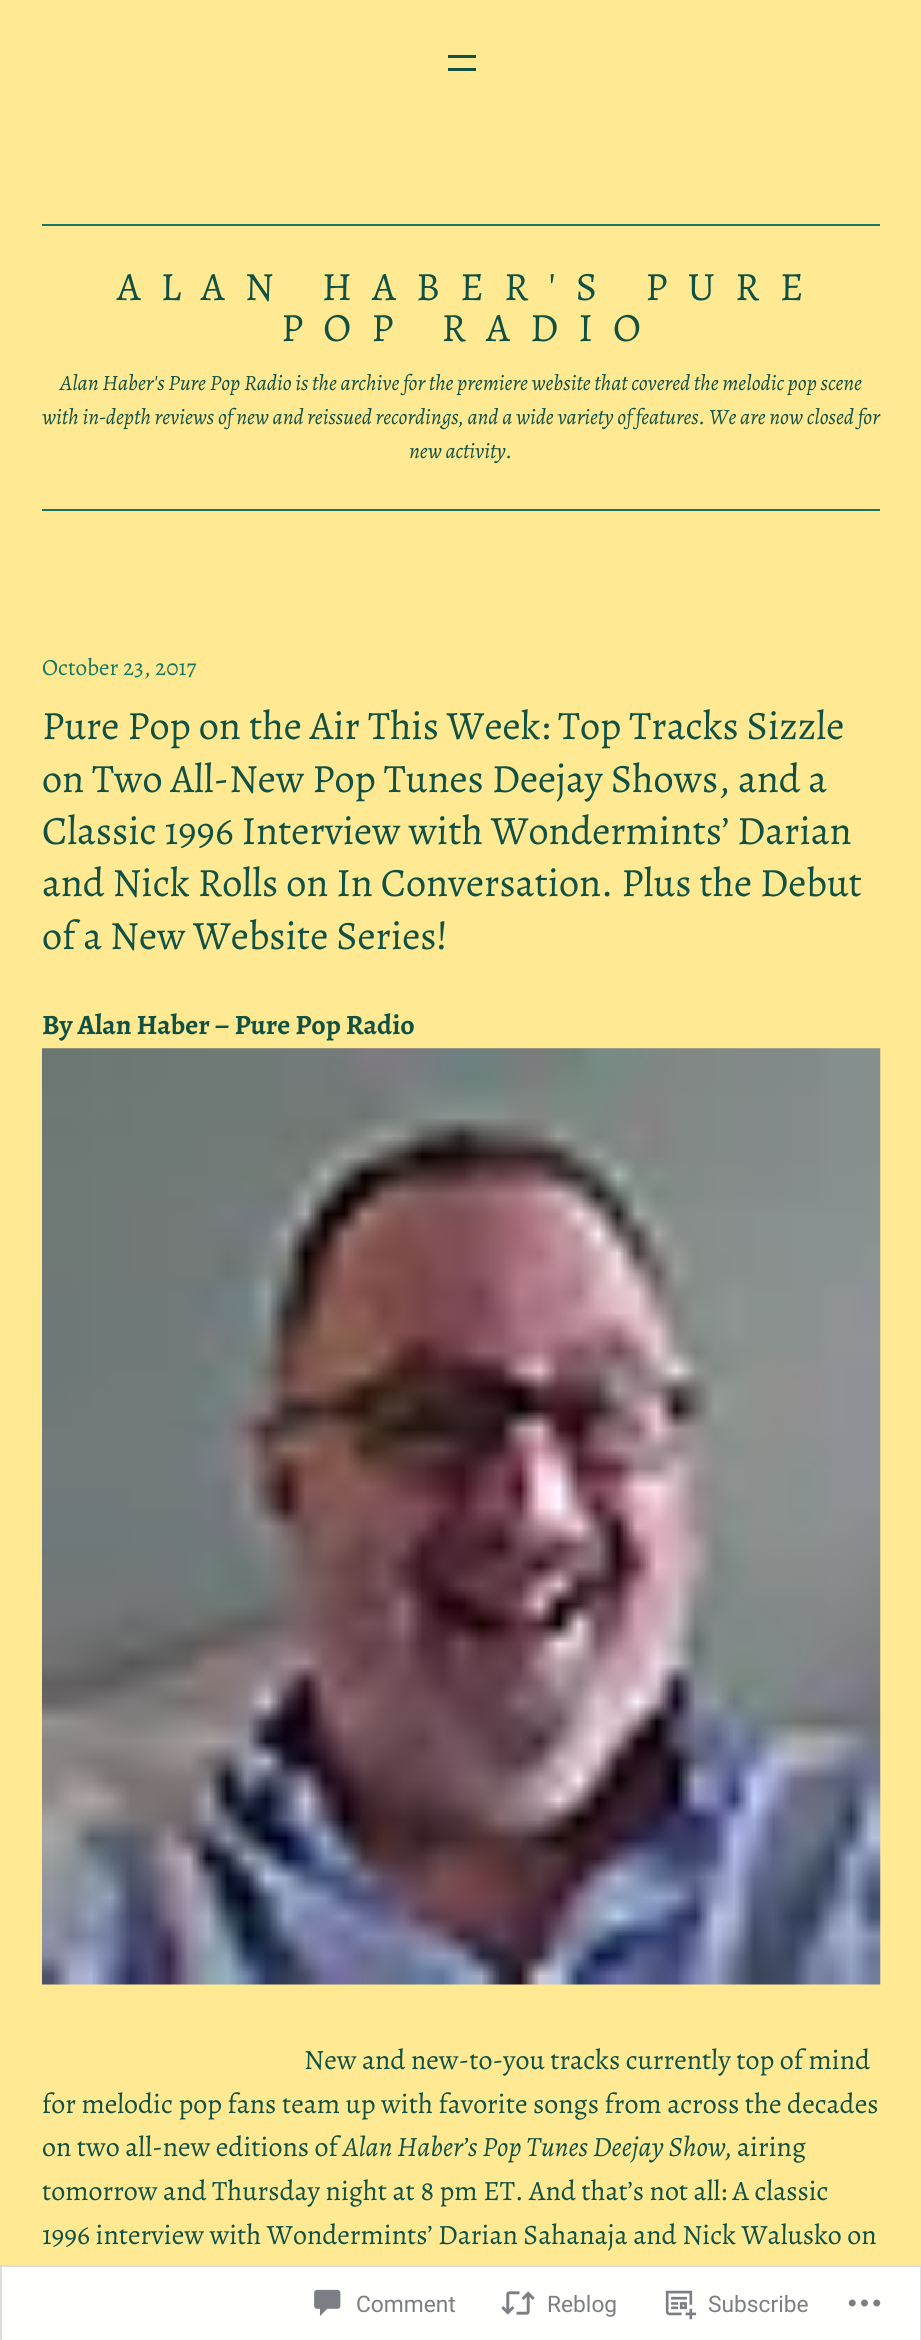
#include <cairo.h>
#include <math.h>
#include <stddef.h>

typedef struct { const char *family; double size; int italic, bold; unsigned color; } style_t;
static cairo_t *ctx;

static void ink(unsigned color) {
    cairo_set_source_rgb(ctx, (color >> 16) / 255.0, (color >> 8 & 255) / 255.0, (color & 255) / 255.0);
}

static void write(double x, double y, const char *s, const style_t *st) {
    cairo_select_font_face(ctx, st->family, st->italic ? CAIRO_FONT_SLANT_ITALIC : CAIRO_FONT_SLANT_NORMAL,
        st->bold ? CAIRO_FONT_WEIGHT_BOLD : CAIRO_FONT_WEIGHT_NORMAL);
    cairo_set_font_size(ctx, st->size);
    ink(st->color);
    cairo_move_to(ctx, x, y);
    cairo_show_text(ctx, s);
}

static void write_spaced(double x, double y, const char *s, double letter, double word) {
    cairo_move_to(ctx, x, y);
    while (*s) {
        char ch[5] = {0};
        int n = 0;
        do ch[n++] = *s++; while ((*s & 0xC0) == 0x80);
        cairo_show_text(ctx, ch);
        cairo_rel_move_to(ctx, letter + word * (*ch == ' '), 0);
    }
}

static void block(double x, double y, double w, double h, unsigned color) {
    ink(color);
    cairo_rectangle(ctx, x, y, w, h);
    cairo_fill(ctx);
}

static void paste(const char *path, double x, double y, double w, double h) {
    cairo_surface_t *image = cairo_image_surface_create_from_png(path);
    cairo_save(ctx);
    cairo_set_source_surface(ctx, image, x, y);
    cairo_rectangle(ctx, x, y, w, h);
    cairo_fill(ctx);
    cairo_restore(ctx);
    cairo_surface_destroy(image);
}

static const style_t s1 = {"Alegreya", 21.85, 1, 0, 0x115143};
static const style_t s2 = {"Alegreya", 23.25, 0, 0, 0x187661};
static const style_t s3 = {"Alegreya", 40.25, 0, 0, 0x115143};
static const style_t s4 = {"Alegreya", 28, 0, 1, 0x115143};
static const style_t s5 = {"Alegreya", 28, 0, 0, 0x115143};
static const style_t s6 = {"Alegreya", 28, 1, 0, 0x115143};
static const style_t s7 = {"Roboto", 22.75, 0, 0, 0x7b7f84};

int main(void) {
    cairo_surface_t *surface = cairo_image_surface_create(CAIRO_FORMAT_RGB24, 921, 2340);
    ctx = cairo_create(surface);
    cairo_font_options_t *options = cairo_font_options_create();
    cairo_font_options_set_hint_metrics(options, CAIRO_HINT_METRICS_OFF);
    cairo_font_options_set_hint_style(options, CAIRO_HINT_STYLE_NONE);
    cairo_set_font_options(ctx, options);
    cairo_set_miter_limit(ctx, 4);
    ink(0xffe993);
    cairo_paint(ctx);
    block(0, 2265, 921, 75, 0xfffffd);
    block(448, 55, 28, 3, 0x115143);
    block(448, 68, 28, 3, 0x115143);
    block(42, 224, 838, 2, 0x187661);
    cairo_select_font_face(ctx, "Alegreya", CAIRO_FONT_SLANT_NORMAL, CAIRO_FONT_WEIGHT_NORMAL);
    cairo_set_font_size(ctx, 40.25);
    ink(0x115143);
    write_spaced(117, 300, "ALAN HABER'S PURE", 20.1, 0);
    write_spaced(281, 341, "POP RADIO", 20.1, 0);
    write(60, 390, "Alan Haber's Pure Pop Radio is the archive for the premiere website that covered the melodic pop scene", &s1);
    write(42, 424, "with in-depth reviews of new and reissued recordings, and a wide variety of features. We are now closed for", &s1);
    write(409, 458, "new activity.", &s1);
    block(42, 509, 838, 2, 0x187661);
    write(42, 675, "October 23, 2017", &s2);
    write(42, 739, "Pure Pop on the Air This Week: Top Tracks Sizzle", &s3);
    write(42, 792, "on Two All-New Pop Tunes Deejay Shows, and a", &s3);
    write(42, 844, "Classic 1996 Interview with Wondermints’ Darian", &s3);
    write(42, 896, "and Nick Rolls on In Conversation. Plus the Debut", &s3);
    write(42, 949, "of a New Website Series!", &s3);
    write(42, 1034, "By Alan Haber – Pure Pop Radio", &s4);
    paste("pic1.png", 42, 1048, 839, 937);
    write(304, 2069, "New and new-to-you tracks currently top of mind", &s5);
    write(42, 2113, "for melodic pop fans team up with favorite songs from across the decades", &s5);
    write(42, 2156, "on two all-new editions of", &s5);
    write(343, 2156, "Alan Haber’s Pop Tunes Deejay Show,", &s6);
    write(737, 2156, "airing", &s5);
    write(42, 2200, "tomorrow and Thursday night at 8 pm ET. And that’s not all: A classic", &s5);
    write(42, 2244, "1996 interview with Wondermints’ Darian Sahanaja and Nick Walusko on", &s5);
    cairo_rectangle(ctx, 1, 2266, 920, 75);
    cairo_set_source_rgba(ctx, 0.863, 0.863, 0.871, 0.98);
    cairo_stroke(ctx);
    paste("pic2.png", 314, 2289, 27, 27);
    write(356, 2312, "Comment", &s7);
    paste("pic3.png", 501, 2291, 34, 24);
    write(547, 2312, "Reblog", &s7);
    paste("pic4.png", 665, 2290, 32, 30);
    write(708, 2312, "Subscribe", &s7);
    paste("pic5.png", 848, 2299, 33, 8);
    cairo_surface_write_to_png(surface, "screenshot.png");
    cairo_font_options_destroy(options);
    cairo_destroy(ctx);
    cairo_surface_destroy(surface);
    return 0;
}
